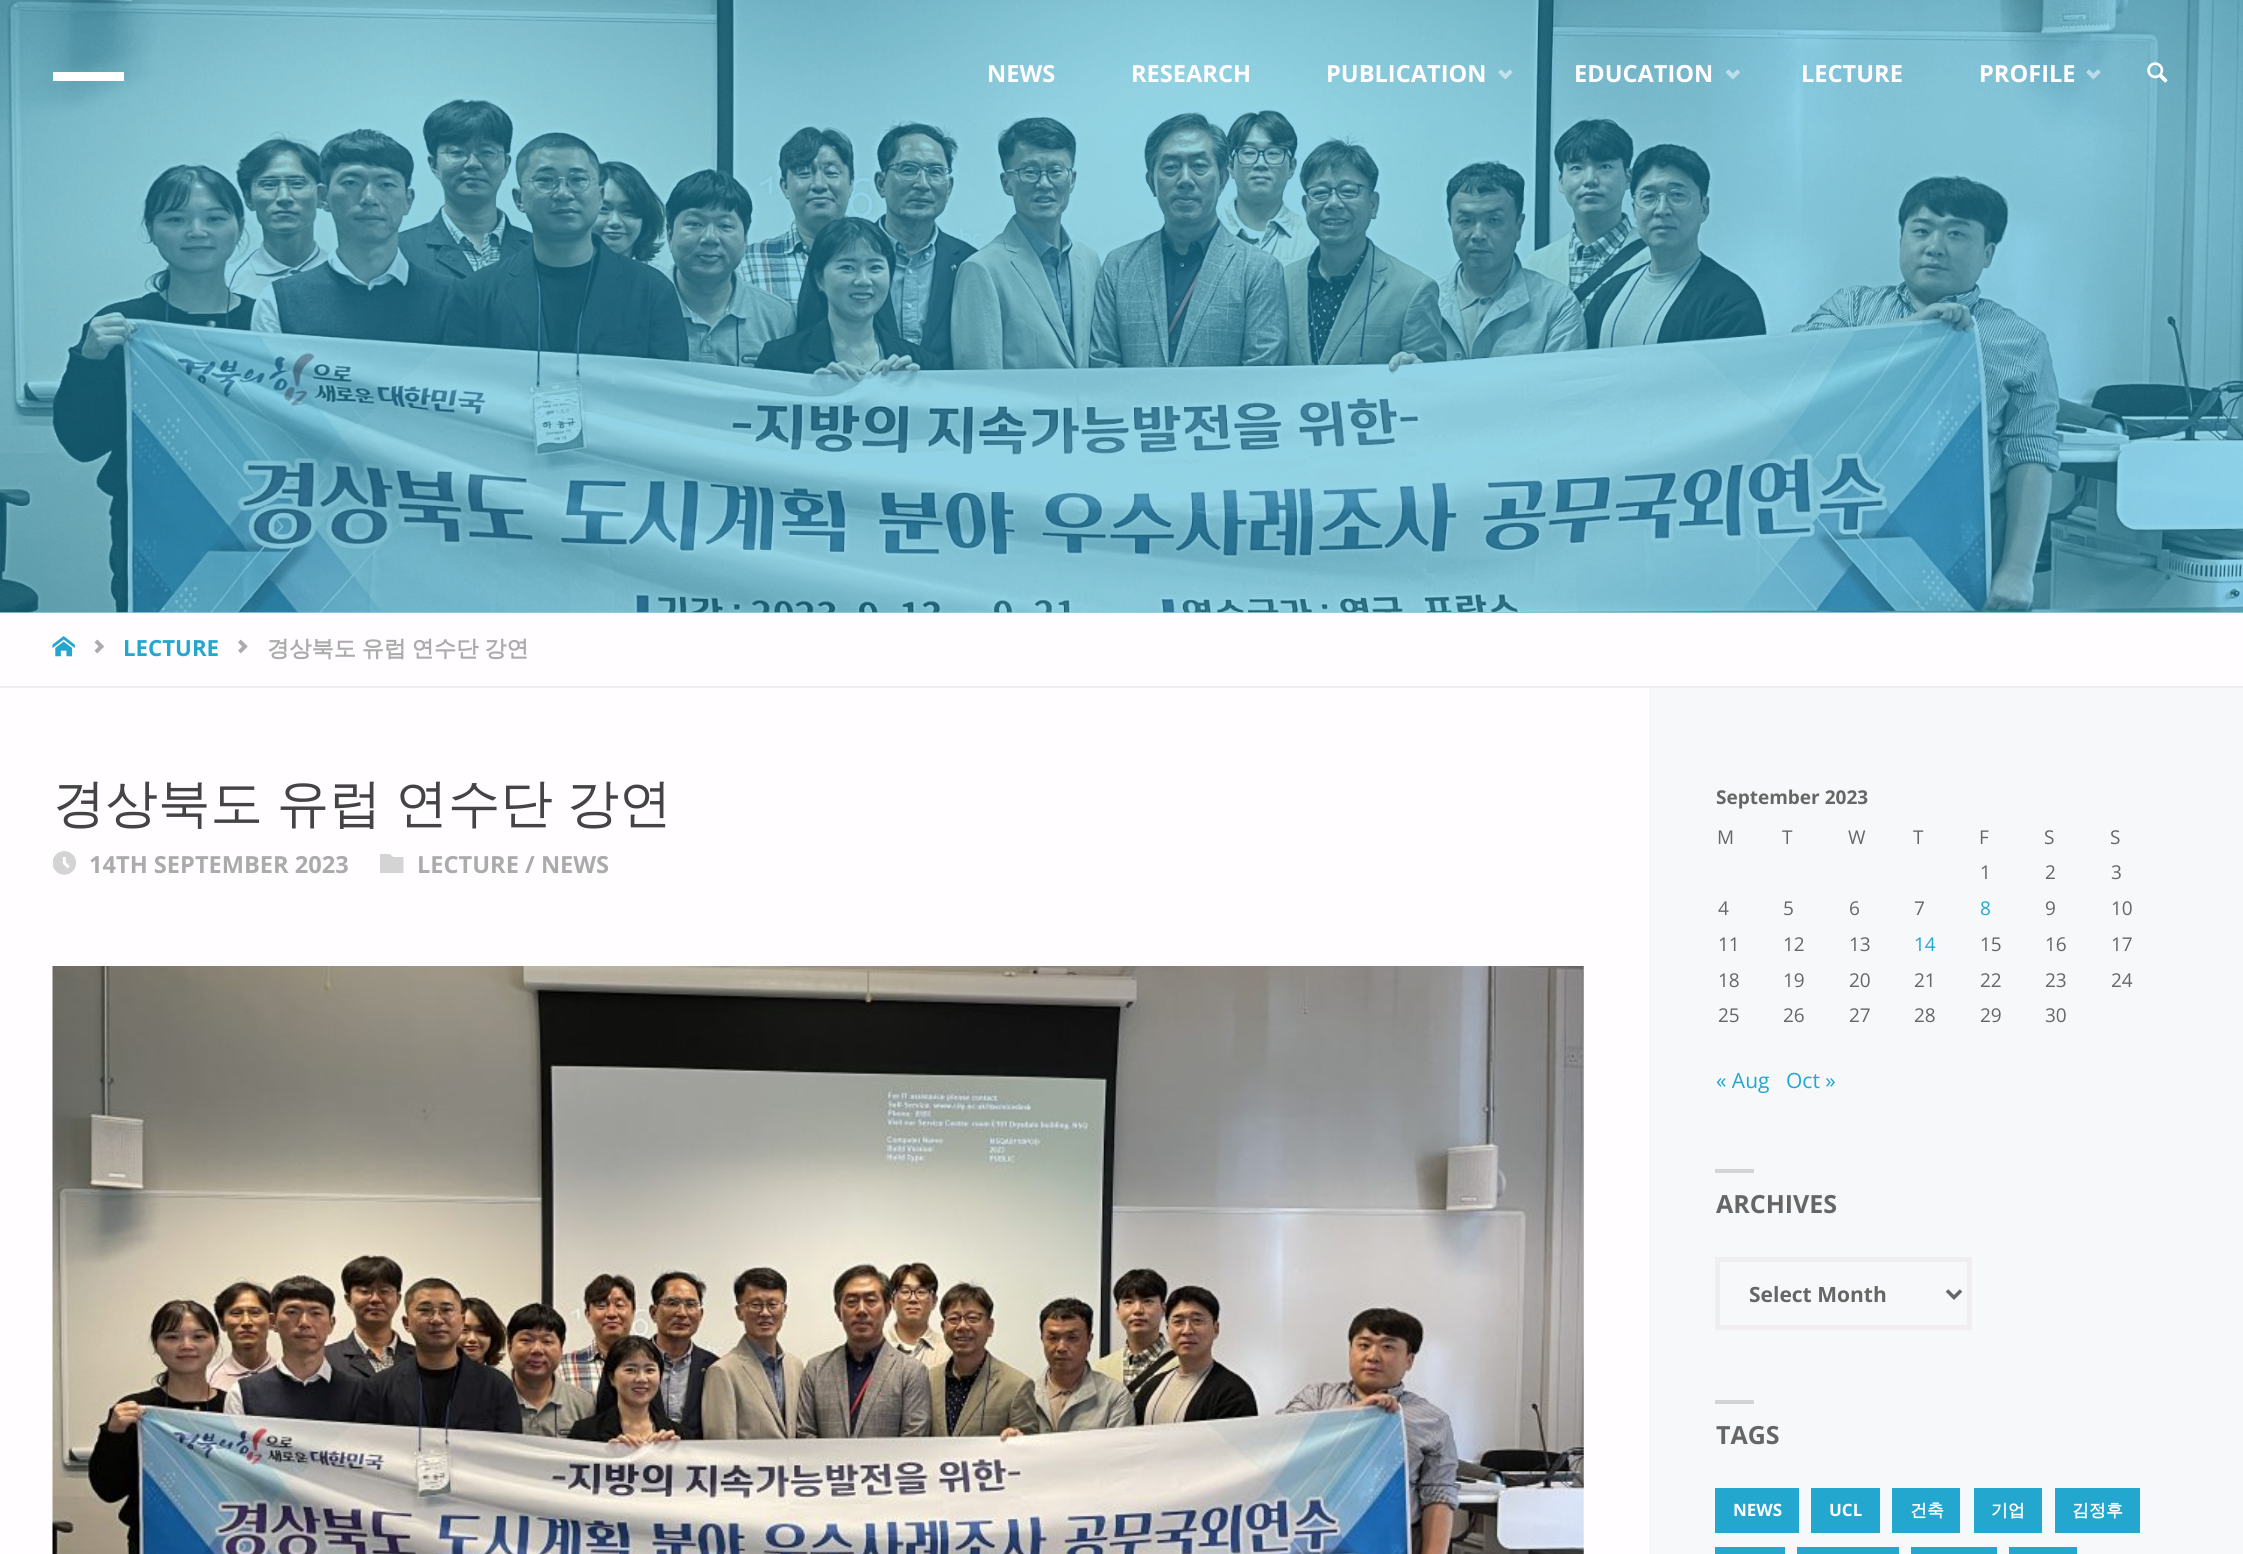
#include <cairo.h>
#include <math.h>
#include <stddef.h>

typedef struct { const char *family; double size; int italic, bold; unsigned color; } style_t;
static cairo_t *ctx;

static void ink(unsigned color) {
    cairo_set_source_rgb(ctx, (color >> 16) / 255.0, (color >> 8 & 255) / 255.0, (color & 255) / 255.0);
}

static void write(double x, double y, const char *s, const style_t *st) {
    cairo_select_font_face(ctx, st->family, st->italic ? CAIRO_FONT_SLANT_ITALIC : CAIRO_FONT_SLANT_NORMAL,
        st->bold ? CAIRO_FONT_WEIGHT_BOLD : CAIRO_FONT_WEIGHT_NORMAL);
    cairo_set_font_size(ctx, st->size);
    ink(st->color);
    cairo_move_to(ctx, x, y);
    cairo_show_text(ctx, s);
}

static void write_spaced(double x, double y, const char *s, double letter, double word) {
    cairo_move_to(ctx, x, y);
    while (*s) {
        char ch[5] = {0};
        int n = 0;
        do ch[n++] = *s++; while ((*s & 0xC0) == 0x80);
        cairo_show_text(ctx, ch);
        cairo_rel_move_to(ctx, letter + word * (*ch == ' '), 0);
    }
}

static void block(double x, double y, double w, double h, unsigned color) {
    ink(color);
    cairo_rectangle(ctx, x, y, w, h);
    cairo_fill(ctx);
}

static void paste(const char *path, double x, double y, double w, double h) {
    cairo_surface_t *image = cairo_image_surface_create_from_png(path);
    cairo_save(ctx);
    cairo_set_source_surface(ctx, image, x, y);
    cairo_rectangle(ctx, x, y, w, h);
    cairo_fill(ctx);
    cairo_restore(ctx);
    cairo_surface_destroy(image);
}

static const style_t s1 = {"Open Sans", 23.6, 0, 1, 0xfffdff};
static const style_t s2 = {"Open Sans", 22.25, 0, 1, 0x24a7cf};
static const style_t s3 = {"Open Sans", 23.6, 0, 1, 0xababab};
static const style_t s4 = {"Open Sans", 19, 0, 1, 0x666666};
static const style_t s5 = {"Open Sans", 19, 0, 0, 0x666666};
static const style_t s6 = {"Open Sans", 19, 0, 0, 0x24a7cf};
static const style_t s7 = {"Open Sans", 21, 0, 0, 0x24a7cf};
static const style_t s8 = {"Open Sans", 25, 0, 1, 0x666666};
static const style_t s9 = {"Open Sans", 21, 0, 1, 0x666666};
static const style_t s10 = {"Open Sans", 17, 0, 1, 0xfffdff};
static const style_t s11 = {"WenQuanYi Zen Hei", 17, 0, 1, 0xfffdff};

int main(void) {
    cairo_surface_t *surface = cairo_image_surface_create(CAIRO_FORMAT_RGB24, 2243, 1554);
    ctx = cairo_create(surface);
    cairo_font_options_t *options = cairo_font_options_create();
    cairo_font_options_set_hint_metrics(options, CAIRO_HINT_METRICS_OFF);
    cairo_font_options_set_hint_style(options, CAIRO_HINT_STYLE_NONE);
    cairo_set_font_options(ctx, options);
    cairo_set_miter_limit(ctx, 4);
    ink(0xfffdff);
    cairo_paint(ctx);
    block(0, 612, 2243, 1, 0x92d2e7);
    paste("pic1.png", 0, 0, 2243, 613);
    block(53, 72, 71, 9, 0xffffff);
    write(987, 82, "NEWS", &s1);
    write(1131, 82, "RESEARCH", &s1);
    write(1326, 82, "PUBLICATION", &s1);
    paste("pic2.png", 1498, 69, 15, 11);
    write(1574, 82, "EDUCATION", &s1);
    paste("pic3.png", 1725, 69, 16, 11);
    write(1801, 82, "LECTURE", &s1);
    write(1979, 82, "PROFILE", &s1);
    paste("pic4.png", 2086, 69, 15, 11);
    paste("pic5.png", 2147, 62, 21, 21);
    block(0, 686, 2243, 2, 0xeeecee);
    paste("pic6.png", 52, 636, 23, 21);
    paste("pic7.png", 94, 639, 11, 15);
    write(123, 656, "LECTURE", &s2);
    paste("pic8.png", 238, 639, 10, 15);
    cairo_select_font_face(ctx, "WenQuanYi Zen Hei", CAIRO_FONT_SLANT_NORMAL, CAIRO_FONT_WEIGHT_BOLD);
    ink(0xababab);
    write_spaced(267, 656, "경상북도 유럽 연수단 강연", 0, -1);
    cairo_select_font_face(ctx, "WenQuanYi Zen Hei Medium", CAIRO_FONT_SLANT_NORMAL, CAIRO_FONT_WEIGHT_NORMAL);
    cairo_set_font_size(ctx, 52.5);
    ink(0x444444);
    write_spaced(53, 821, "경상북도 유럽 연수단 강연", 0, -2);
    paste("pic9.png", 53, 851, 23, 24);
    write(89, 873, "14TH SEPTEMBER 2023", &s3);
    ink(0xd5d4d5);
    cairo_new_path(ctx);
    cairo_move_to(ctx, 390, 854);
    cairo_line_to(ctx, 393, 857);
    cairo_line_to(ctx, 403.5, 857);
    cairo_line_to(ctx, 403.5, 873);
    cairo_line_to(ctx, 380, 873);
    cairo_line_to(ctx, 380, 854);
    cairo_close_path(ctx);
    cairo_fill(ctx);
    write(417, 873, "LECTURE / NEWS", &s3);
    paste("pic10.png", 52, 966, 1532, 588);
    block(1649, 688, 594, 866, 0xf7f8f9);
    write(1716, 804, "September 2023", &s4);
    write(1717, 844, "M", &s5);
    write(1782, 844, "T", &s5);
    write(1848, 844, "W", &s5);
    write(1913, 844, "T", &s5);
    write(1979, 844, "F", &s5);
    write(2044, 844, "S", &s5);
    write(2110, 844, "S", &s5);
    write(1980, 879, "1", &s5);
    write(2045, 879, "2", &s5);
    write(2111, 879, "3", &s5);
    write(1718, 915, "4", &s5);
    write(1783, 915, "5", &s5);
    write(1849, 915, "6", &s5);
    write(1914, 915, "7", &s5);
    write(1980, 915, "8", &s6);
    write(2045, 915, "9", &s5);
    write(2111, 915, "10", &s5);
    write(1718, 951, "11", &s5);
    write(1783, 951, "12", &s5);
    write(1849, 951, "13", &s5);
    write(1914, 951, "14", &s6);
    write(1980, 951, "15", &s5);
    write(2045, 951, "16", &s5);
    write(2111, 951, "17", &s5);
    write(1718, 987, "18", &s5);
    write(1783, 987, "19", &s5);
    write(1849, 987, "20", &s5);
    write(1914, 987, "21", &s5);
    write(1980, 987, "22", &s5);
    write(2045, 987, "23", &s5);
    write(2111, 987, "24", &s5);
    write(1718, 1022, "25", &s5);
    write(1783, 1022, "26", &s5);
    write(1849, 1022, "27", &s5);
    write(1914, 1022, "28", &s5);
    write(1980, 1022, "29", &s5);
    write(2045, 1022, "30", &s5);
    write(1716, 1088, "« Aug", &s7);
    write(1786, 1088, "Oct »", &s7);
    block(1715, 1169, 39, 4, 0xd3d4d4);
    write(1716, 1213, "ARCHIVES", &s8);
    cairo_rectangle(ctx, 1717.5, 1259.5, 252, 68);
    ink(0xf0eef0);
    cairo_set_line_width(ctx, 5);
    cairo_stroke(ctx);
    cairo_new_path(ctx);
    cairo_move_to(ctx, 1947, 1290.5);
    cairo_line_to(ctx, 1954, 1297.5);
    cairo_line_to(ctx, 1961, 1290.5);
    ink(0x666666);
    cairo_set_line_width(ctx, 3.5);
    cairo_stroke(ctx);
    write(1749, 1302, "Select Month", &s9);
    block(1715, 1400, 39, 4, 0xd3d4d4);
    write(1716, 1444, "TAGS", &s8);
    block(1715, 1488, 84, 45, 0x24a7cf);
    write(1733, 1516, "NEWS", &s10);
    block(1811, 1488, 69, 45, 0x24a7cf);
    write(1829, 1516, "UCL", &s10);
    block(1892, 1488, 68, 45, 0x24a7cf);
    write(1910, 1516, "건축", &s11);
    block(1974, 1488, 68, 45, 0x24a7cf);
    write(1991, 1516, "기업", &s11);
    block(2055, 1488, 85, 45, 0x24a7cf);
    write(2072, 1516, "김정후", &s11);
    block(1715, 1547, 70, 7, 0x24a7cf);
    block(1797, 1547, 102, 7, 0x24a7cf);
    block(1911, 1547, 86, 7, 0x24a7cf);
    block(2009, 1547, 68, 7, 0x24a7cf);
    cairo_surface_write_to_png(surface, "screenshot.png");
    cairo_font_options_destroy(options);
    cairo_destroy(ctx);
    cairo_surface_destroy(surface);
    return 0;
}
